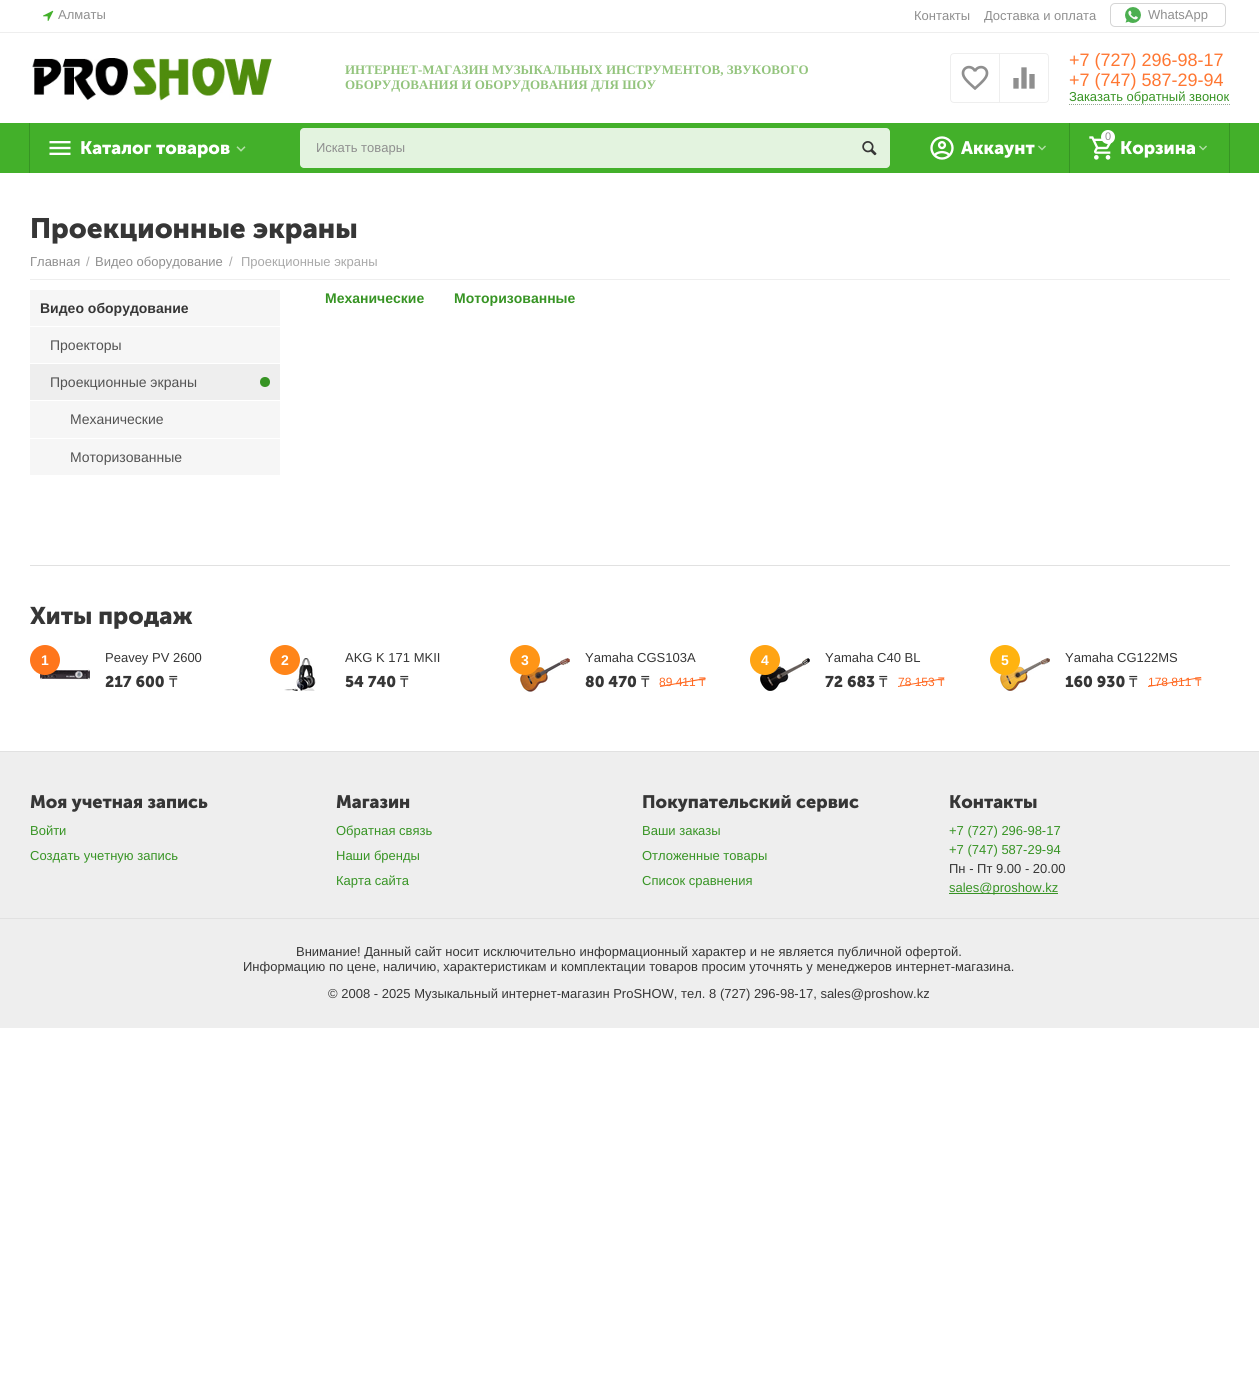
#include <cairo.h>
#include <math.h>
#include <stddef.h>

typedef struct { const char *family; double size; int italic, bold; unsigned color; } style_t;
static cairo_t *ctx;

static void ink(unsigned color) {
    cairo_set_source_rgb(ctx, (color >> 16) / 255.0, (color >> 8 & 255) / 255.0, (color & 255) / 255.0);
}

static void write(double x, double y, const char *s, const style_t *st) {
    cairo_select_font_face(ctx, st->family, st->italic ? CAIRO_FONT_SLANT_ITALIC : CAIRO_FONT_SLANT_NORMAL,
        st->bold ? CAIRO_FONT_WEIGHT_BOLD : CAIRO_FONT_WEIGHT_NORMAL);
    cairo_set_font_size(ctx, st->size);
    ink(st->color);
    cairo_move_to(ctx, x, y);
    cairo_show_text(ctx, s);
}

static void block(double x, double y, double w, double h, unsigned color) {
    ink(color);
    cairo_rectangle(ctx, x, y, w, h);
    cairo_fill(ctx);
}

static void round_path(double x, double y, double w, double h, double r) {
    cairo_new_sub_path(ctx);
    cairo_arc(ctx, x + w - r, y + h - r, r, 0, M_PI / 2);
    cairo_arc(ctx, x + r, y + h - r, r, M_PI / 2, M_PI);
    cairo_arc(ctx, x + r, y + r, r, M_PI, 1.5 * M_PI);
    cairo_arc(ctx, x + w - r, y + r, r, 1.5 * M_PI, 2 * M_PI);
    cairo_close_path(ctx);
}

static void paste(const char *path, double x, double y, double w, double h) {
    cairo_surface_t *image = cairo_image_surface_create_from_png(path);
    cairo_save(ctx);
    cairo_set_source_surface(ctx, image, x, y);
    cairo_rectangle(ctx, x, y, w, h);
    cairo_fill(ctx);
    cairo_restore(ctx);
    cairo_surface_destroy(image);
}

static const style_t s1 = {"Liberation Sans", 13, 0, 0, 0x8f8f8f};
static const style_t s2 = {"Liberation Serif", 13, 0, 1, 0x93c47d};
static const style_t s3 = {"Liberation Sans", 18, 0, 0, 0xff7631};
static const style_t s4 = {"Liberation Sans", 13, 0, 0, 0x379424};
static const style_t s5 = {"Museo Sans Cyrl", 18, 0, 1, 0xffffff};
static const style_t s6 = {"Liberation Sans", 11, 0, 0, 0x8f8f8f};
static const style_t s7 = {"Museo Sans Cyrl", 28, 0, 1, 0x363636};
static const style_t s8 = {"Liberation Sans", 13, 0, 0, 0xa9a9a9};
static const style_t s9 = {"Liberation Sans", 14, 0, 1, 0x379424};
static const style_t s10 = {"Liberation Sans", 14, 0, 1, 0x363636};
static const style_t s11 = {"Liberation Sans", 14, 0, 0, 0x535353};
static const style_t s12 = {"Museo Sans Cyrl", 24, 0, 1, 0x363636};
static const style_t s13 = {"Liberation Sans", 14, 0, 1, 0xffffff};
static const style_t s14 = {"Liberation Sans", 13, 0, 0, 0x363636};
static const style_t s15 = {"Museo Sans Cyrl", 15.5, 0, 1, 0x363636};
static const style_t s16 = {"Noto Sans", 15.5, 0, 0, 0x363636};
static const style_t s17 = {"Liberation Sans", 12, 0, 0, 0xff671f};
static const style_t s18 = {"Noto Sans", 12, 0, 0, 0xff671f};
static const style_t s19 = {"Museo Sans Cyrl", 18, 0, 1, 0x363636};

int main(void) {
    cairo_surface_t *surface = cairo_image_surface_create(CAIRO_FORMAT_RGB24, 1259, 1384);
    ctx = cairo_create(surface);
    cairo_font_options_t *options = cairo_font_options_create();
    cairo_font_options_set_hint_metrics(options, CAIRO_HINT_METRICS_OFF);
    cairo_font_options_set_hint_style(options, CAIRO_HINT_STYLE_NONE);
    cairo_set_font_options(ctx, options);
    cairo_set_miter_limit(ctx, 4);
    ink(0xffffff);
    cairo_paint(ctx);
    block(0, 32, 1259, 1, 0xeeeeee);
    paste("pic1.png", 43, 10, 11, 11);
    write(58, 19, "Алматы", &s1);
    write(914, 20, "Контакты", &s1);
    write(984, 20, "Доставка и оплата", &s1);
    round_path(1110.5, 3.5, 115, 23, 4.5);
    ink(0xd5d5d5);
    cairo_set_line_width(ctx, 1);
    cairo_stroke(ctx);
    paste("pic2.png", 1125, 7, 16, 16);
    write(1148, 19, "WhatsApp", &s1);
    paste("pic3.png", 32, 58, 240, 43);
    write(345, 74, "ИНТЕРНЕТ-МАГАЗИН МУЗЫКАЛЬНЫХ ИНСТРУМЕНТОВ, ЗВУКОВОГО", &s2);
    write(345, 89, "ОБОРУДОВАНИЯ И ОБОРУДОВАНИЯ ДЛЯ ШОУ", &s2);
    cairo_new_path(ctx);
    cairo_move_to(ctx, 999.5, 53.5);
    cairo_line_to(ctx, 1045, 53.5);
    cairo_curve_to(ctx, 1047, 53.5, 1048.5, 55, 1048.5, 57);
    cairo_line_to(ctx, 1048.5, 99);
    cairo_curve_to(ctx, 1048.5, 101, 1047, 102.5, 1045, 102.5);
    cairo_line_to(ctx, 999.5, 102.5);
    cairo_close_path(ctx);
    ink(0xeeeeee);
    cairo_stroke(ctx);
    ink(0xffffff);
    cairo_new_path(ctx);
    cairo_move_to(ctx, 954, 53.5);
    cairo_line_to(ctx, 999.5, 53.5);
    cairo_line_to(ctx, 999.5, 102.5);
    cairo_line_to(ctx, 954, 102.5);
    cairo_curve_to(ctx, 952, 102.5, 950.5, 101, 950.5, 99);
    cairo_line_to(ctx, 950.5, 57);
    cairo_curve_to(ctx, 950.5, 55, 952, 53.5, 954, 53.5);
    cairo_close_path(ctx);
    cairo_fill_preserve(ctx);
    ink(0xeeeeee);
    cairo_stroke(ctx);
    paste("pic4.png", 961, 65, 28, 25);
    paste("pic5.png", 1013, 67, 22, 22);
    write(1069, 66, "+7 (727) 296-98-17", &s3);
    write(1069, 86, "+7 (747) 587-29-94", &s3);
    write(1069, 101, "Заказать обратный звонок", &s4);
    cairo_new_path(ctx);
    cairo_move_to(ctx, 1069, 104.5);
    cairo_line_to(ctx, 1230, 104.5);
    ink(0x95a791);
    cairo_set_dash(ctx, (double[]){1, 1}, 2, 0);
    cairo_stroke(ctx);
    block(0, 123, 1259, 50, 0x43b02a);
    block(29, 123, 1, 50, 0x379424);
    paste("pic6.png", 49, 141, 22, 14);
    write(80, 154, "Каталог товаров", &s5);
    paste("pic7.png", 236, 146, 10, 6);
    ink(0xe3f3df);
    round_path(300, 128, 590, 40, 4);
    cairo_fill(ctx);
    write(316, 152, "Искать товары", &s1);
    paste("pic8.png", 862, 141, 15, 15);
    block(1069, 123, 1, 50, 0x379424);
    paste("pic9.png", 930, 136, 24, 24);
    write(961, 154, "Аккаунт", &s5);
    paste("pic10.png", 1038, 145, 8, 6);
    block(1229, 123, 1, 50, 0x379424);
    paste("pic11.png", 1089, 136, 23, 24);
    ink(0xffffff);
    cairo_arc(ctx, 1108, 137, 7, 0, 2 * M_PI);
    cairo_fill(ctx);
    write(1105, 140, "0", &s6);
    write(1120, 154, "Корзина", &s5);
    paste("pic10.png", 1199, 145, 8, 6);
    write(30, 238, "Проекционные экраны", &s7);
    block(30, 279, 1200, 1, 0xeeeeee);
    write(30, 266, "Главная", &s1);
    write(86, 266, "/", &s8);
    write(95, 266, "Видео оборудование", &s1);
    write(229, 266, "/", &s8);
    write(241, 266, "Проекционные экраны", &s8);
    write(325, 303, "Механические", &s9);
    write(454, 303, "Моторизованные", &s9);
    block(30, 290, 250, 185, 0xf6f6f6);
    block(30, 326, 250, 1, 0xffffff);
    write(40, 313, "Видео оборудование", &s10);
    block(30, 363, 250, 1, 0xffffff);
    write(50, 350, "Проекторы", &s11);
    block(30, 364, 250, 36, 0xeeeeee);
    block(30, 400, 250, 1, 0xffffff);
    write(50, 387, "Проекционные экраны", &s11);
    ink(0x379424);
    cairo_new_path(ctx);
    cairo_arc(ctx, 265, 382, 5, 0, 2 * M_PI);
    cairo_fill(ctx);
    block(30, 438, 250, 1, 0xffffff);
    write(70, 424, "Механические", &s11);
    write(70, 462, "Моторизованные", &s11);
    block(30, 565, 1200, 1, 0xe1e1e1);
    write(30, 624, "Хиты продаж", &s12);
    paste("pic12.png", 40, 669, 50, 11);
    ink(0xff761c);
    cairo_arc(ctx, 45, 660, 15, 0, 2 * M_PI);
    cairo_fill(ctx);
    write(41, 665, "1", &s13);
    write(105, 662, "Peavey PV 2600", &s14);
    write(105, 687, "217 600", &s15);
    write(169, 687, "₸", &s16);
    paste("pic13.png", 284, 658, 32, 33);
    ink(0xff8519);
    cairo_arc(ctx, 285, 660, 15, 0, 2 * M_PI);
    cairo_fill(ctx);
    write(281, 665, "2", &s13);
    write(345, 662, "AKG K 171 MKII", &s14);
    write(345, 687, "54 740", &s15);
    write(400, 687, "₸", &s16);
    paste("pic14.png", 520, 658, 50, 34);
    ink(0xff9516);
    cairo_arc(ctx, 525, 660, 15, 0, 2 * M_PI);
    cairo_fill(ctx);
    write(521, 665, "3", &s13);
    write(585, 662, "Yamaha CGS103A", &s14);
    write(585, 687, "80 470", &s15);
    write(641, 687, "₸", &s16);
    write(659, 686, "89 411", &s17);
    write(699, 686, "₸", &s18);
    cairo_new_path(ctx);
    cairo_move_to(ctx, 660, 686);
    cairo_line_to(ctx, 705, 678);
    cairo_line_to(ctx, 706, 679);
    cairo_line_to(ctx, 660, 687);
    cairo_close_path(ctx);
    cairo_fill(ctx);
    paste("pic15.png", 760, 658, 50, 33);
    ink(0xffa413);
    cairo_arc(ctx, 765, 660, 15, 0, 2 * M_PI);
    cairo_fill(ctx);
    write(761, 665, "4", &s13);
    write(825, 662, "Yamaha C40 BL", &s14);
    write(825, 687, "72 683", &s15);
    write(879, 687, "₸", &s16);
    write(898, 686, "78 153", &s17);
    write(938, 686, "₸", &s18);
    cairo_new_path(ctx);
    cairo_move_to(ctx, 898, 686);
    cairo_line_to(ctx, 944, 678);
    cairo_line_to(ctx, 944, 679);
    cairo_line_to(ctx, 898, 687);
    cairo_close_path(ctx);
    cairo_fill(ctx);
    paste("pic16.png", 1000, 658, 50, 33);
    ink(0xffb310);
    cairo_arc(ctx, 1005, 660, 15, 0, 2 * M_PI);
    cairo_fill(ctx);
    write(1001, 665, "5", &s13);
    write(1065, 662, "Yamaha CG122MS", &s14);
    write(1065, 687, "160 930", &s15);
    write(1129, 687, "₸", &s16);
    write(1148, 686, "178 811", &s17);
    cairo_new_path(ctx);
    cairo_move_to(ctx, 1148, 686);
    cairo_line_to(ctx, 1201, 677);
    cairo_line_to(ctx, 1201, 678);
    cairo_line_to(ctx, 1148, 687);
    cairo_close_path(ctx);
    cairo_fill(ctx);
    write(1195, 686, "₸", &s18);
    block(0, 752, 1259, 276, 0xeeeeee);
    block(0, 751, 1259, 1, 0xe1e1e1);
    block(0, 918, 1259, 1, 0xe1e1e1);
    write(30, 808, "Моя учетная запись", &s19);
    write(30, 835, "Войти", &s4);
    write(30, 860, "Создать учетную запись", &s4);
    write(336, 808, "Магазин", &s19);
    write(336, 835, "Обратная связь", &s4);
    write(336, 860, "Наши бренды", &s4);
    write(336, 885, "Карта сайта", &s4);
    write(642, 808, "Покупательский сервис", &s19);
    write(642, 835, "Ваши заказы", &s4);
    write(642, 860, "Отложенные товары", &s4);
    write(642, 885, "Список сравнения", &s4);
    write(949, 808, "Контакты", &s19);
    write(949, 835, "+7 (727) 296-98-17", &s4);
    write(949, 854, "+7 (747) 587-29-94", &s4);
    write(949, 873, "Пн - Пт 9.00 - 20.00", &s14);
    block(949, 893, 109, 1, 0x379424);
    write(949, 892, "sales@proshow.kz", &s4);
    write(296, 956, "Внимание! Данный сайт носит исключительно информационный характер и не является публичной офертой.", &s14);
    write(243, 971, "Информацию по цене, наличию, характеристикам и комплектации товаров просим уточнять у менеджеров интернет-магазина.", &s14);
    write(328, 998, "© 2008 - 2025 Музыкальный интернет-магазин ProSHOW, тел. 8 (727) 296-98-17, sales@proshow.kz", &s14);
    cairo_surface_write_to_png(surface, "screenshot.png");
    cairo_font_options_destroy(options);
    cairo_destroy(ctx);
    cairo_surface_destroy(surface);
    return 0;
}
